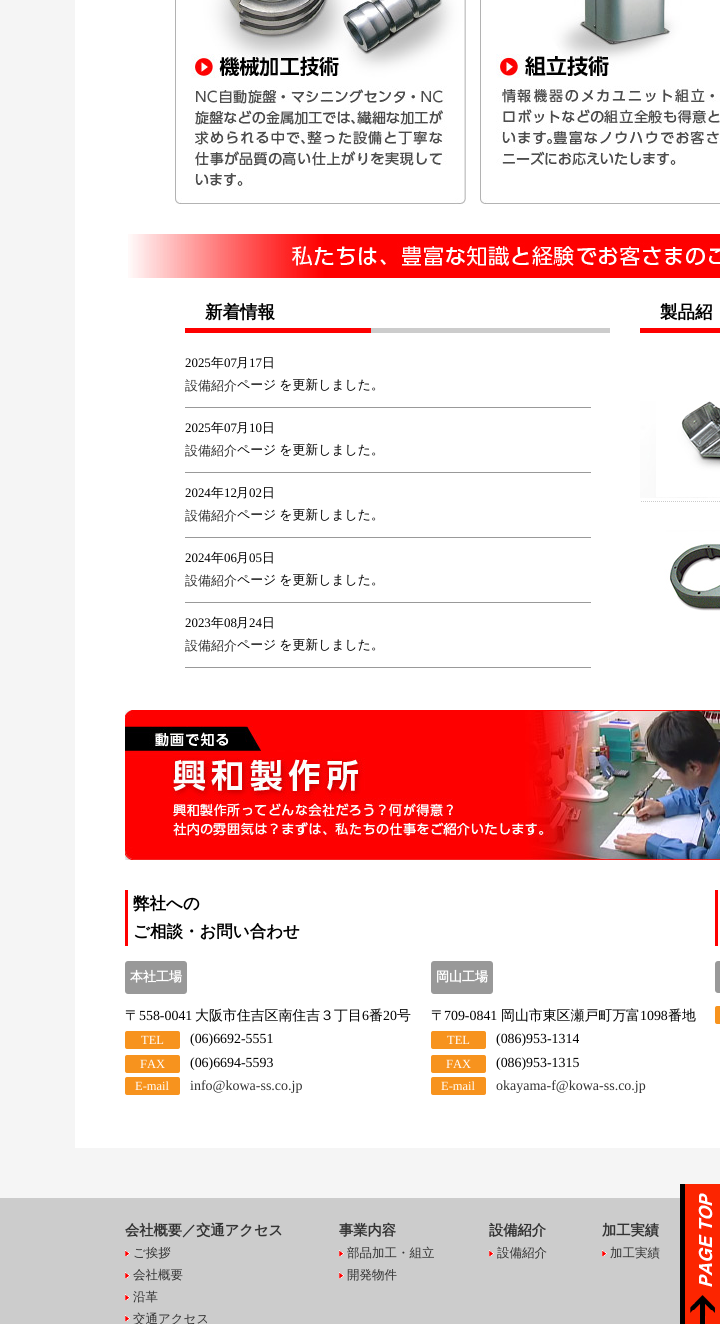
#include <cairo.h>
#include <math.h>
#include <stddef.h>

typedef struct { const char *family; double size; int italic, bold; unsigned color; } style_t;
static cairo_t *ctx;

static void ink(unsigned color) {
    cairo_set_source_rgb(ctx, (color >> 16) / 255.0, (color >> 8 & 255) / 255.0, (color & 255) / 255.0);
}

static void write(double x, double y, const char *s, const style_t *st) {
    cairo_select_font_face(ctx, st->family, st->italic ? CAIRO_FONT_SLANT_ITALIC : CAIRO_FONT_SLANT_NORMAL,
        st->bold ? CAIRO_FONT_WEIGHT_BOLD : CAIRO_FONT_WEIGHT_NORMAL);
    cairo_set_font_size(ctx, st->size);
    ink(st->color);
    cairo_move_to(ctx, x, y);
    cairo_show_text(ctx, s);
}

static void write_spaced(double x, double y, const char *s, double letter, double word) {
    cairo_move_to(ctx, x, y);
    while (*s) {
        char ch[5] = {0};
        int n = 0;
        do ch[n++] = *s++; while ((*s & 0xC0) == 0x80);
        cairo_show_text(ctx, ch);
        cairo_rel_move_to(ctx, letter + word * (*ch == ' '), 0);
    }
}

static void block(double x, double y, double w, double h, unsigned color) {
    ink(color);
    cairo_rectangle(ctx, x, y, w, h);
    cairo_fill(ctx);
}

static void round_path(double x, double y, double w, double h, double r) {
    cairo_new_sub_path(ctx);
    cairo_arc(ctx, x + w - r, y + h - r, r, 0, M_PI / 2);
    cairo_arc(ctx, x + r, y + h - r, r, M_PI / 2, M_PI);
    cairo_arc(ctx, x + r, y + r, r, M_PI, 1.5 * M_PI);
    cairo_arc(ctx, x + w - r, y + r, r, 1.5 * M_PI, 2 * M_PI);
    cairo_close_path(ctx);
}

static void paste(const char *path, double x, double y, double w, double h) {
    cairo_surface_t *image = cairo_image_surface_create_from_png(path);
    cairo_save(ctx);
    cairo_set_source_surface(ctx, image, x, y);
    cairo_rectangle(ctx, x, y, w, h);
    cairo_fill(ctx);
    cairo_restore(ctx);
    cairo_surface_destroy(image);
}

static const style_t s1 = {"WenQuanYi Zen Hei", 17.5, 0, 1, 0x000000};
static const style_t s2 = {"Liberation Serif", 12.9, 0, 0, 0x000000};
static const style_t s3 = {"WenQuanYi Zen Hei Medium", 12.9, 0, 0, 0x000000};
static const style_t s4 = {"WenQuanYi Zen Hei Medium", 13, 0, 0, 0x333333};
static const style_t s5 = {"WenQuanYi Zen Hei", 16.5, 0, 1, 0x000000};
static const style_t s6 = {"WenQuanYi Zen Hei", 13, 0, 1, 0xffffff};
static const style_t s7 = {"WenQuanYi Zen Hei Medium", 13.9, 0, 0, 0x000000};
static const style_t s8 = {"Liberation Serif", 13.9, 0, 0, 0x000000};
static const style_t s9 = {"Liberation Serif", 12.5, 0, 0, 0xffffff};
static const style_t s10 = {"Liberation Serif", 14, 0, 0, 0x333333};
static const style_t s11 = {"WenQuanYi Zen Hei", 14.25, 0, 1, 0x333333};
static const style_t s12 = {"WenQuanYi Zen Hei Medium", 12.5, 0, 0, 0x333333};

int main(void) {
    cairo_surface_t *surface = cairo_image_surface_create(CAIRO_FORMAT_RGB24, 720, 1324);
    ctx = cairo_create(surface);
    cairo_font_options_t *options = cairo_font_options_create();
    cairo_font_options_set_hint_metrics(options, CAIRO_HINT_METRICS_OFF);
    cairo_font_options_set_hint_style(options, CAIRO_HINT_STYLE_NONE);
    cairo_set_font_options(ctx, options);
    cairo_set_miter_limit(ctx, 4);
    ink(0xf5f5f5);
    cairo_paint(ctx);
    block(75, 0, 645, 1148, 0xffffff);
    paste("pic1.png", 175, 0, 291, 204);
    paste("pic2.png", 480, 0, 240, 204);
    paste("pic3.png", 128, 234, 592, 44);
    paste("pic4.png", 185, 328, 425, 5);
    write(205, 318, "新着情報", &s1);
    block(185, 407, 406, 1, 0x999999);
    write(185, 367, "2025", &s2);
    write(211, 367, "年", &s3);
    write(224, 367, "07", &s2);
    write(236, 367, "月", &s3);
    write(249, 367, "17", &s2);
    write(262, 367, "日", &s3);
    write(185, 390, "設備紹介", &s4);
    cairo_set_font_size(ctx, 12.9);
    ink(0x000000);
    write_spaced(237, 389, "ページ を更新しました。", 0, -1);
    block(185, 472, 406, 1, 0x999999);
    write(185, 432, "2025", &s2);
    write(211, 432, "年", &s3);
    write(224, 432, "07", &s2);
    write(236, 432, "月", &s3);
    write(249, 432, "10", &s2);
    write(262, 432, "日", &s3);
    write(185, 455, "設備紹介", &s4);
    cairo_set_font_size(ctx, 12.9);
    ink(0x000000);
    write_spaced(237, 454, "ページ を更新しました。", 0, -1);
    block(185, 537, 406, 1, 0x999999);
    write(185, 497, "2024", &s2);
    write(211, 497, "年", &s3);
    write(224, 497, "12", &s2);
    write(236, 497, "月", &s3);
    write(249, 497, "02", &s2);
    write(262, 497, "日", &s3);
    write(185, 520, "設備紹介", &s4);
    cairo_set_font_size(ctx, 12.9);
    ink(0x000000);
    write_spaced(237, 519, "ページ を更新しました。", 0, -1);
    block(185, 602, 406, 1, 0x999999);
    write(185, 562, "2024", &s2);
    write(211, 562, "年", &s3);
    write(224, 562, "06", &s2);
    write(236, 562, "月", &s3);
    write(249, 562, "05", &s2);
    write(262, 562, "日", &s3);
    write(185, 585, "設備紹介", &s4);
    cairo_set_font_size(ctx, 12.9);
    ink(0x000000);
    write_spaced(237, 584, "ページ を更新しました。", 0, -1);
    block(185, 667, 406, 1, 0x999999);
    write(185, 627, "2023", &s2);
    write(211, 627, "年", &s3);
    write(224, 627, "08", &s2);
    write(236, 627, "月", &s3);
    write(249, 627, "24", &s2);
    write(262, 627, "日", &s3);
    write(185, 650, "設備紹介", &s4);
    cairo_set_font_size(ctx, 12.9);
    ink(0x000000);
    write_spaced(237, 649, "ページ を更新しました。", 0, -1);
    block(640, 328, 80, 5, 0xfe0000);
    write(660, 318, "製品紹", &s1);
    paste("pic5.png", 640, 401, 80, 210);
    paste("pic6.png", 125, 710, 595, 150);
    block(125, 890, 3, 56, 0xff0000);
    write(133, 909, "弊社への", &s5);
    write(133, 937, "ご相談・お問い合わせ", &s5);
    ink(0x999999);
    round_path(125, 961, 62, 33, 3);
    cairo_fill(ctx);
    write(130, 981, "本社工場", &s6);
    write(125, 1020, "〒", &s7);
    write(139, 1020, "558-0041", &s8);
    write(195, 1020, "大阪市住吉区南住吉３丁目", &s7);
    write(362, 1020, "6", &s8);
    write(369, 1020, "番", &s7);
    write(383, 1020, "20", &s8);
    write(397, 1020, "号", &s7);
    ink(0xf7931e);
    round_path(125, 1031, 55, 18, 2);
    cairo_fill(ctx);
    write(141, 1044, "TEL", &s9);
    write(190, 1043, "(06)6692-5551", &s8);
    ink(0xf7931e);
    round_path(125, 1055, 55, 18, 2);
    cairo_fill(ctx);
    write(140, 1068, "FAX", &s9);
    write(190, 1067, "(06)6694-5593", &s8);
    ink(0xf7931e);
    round_path(125, 1077, 55, 18, 2);
    cairo_fill(ctx);
    write(135, 1090, "E-mail", &s9);
    write(190, 1090, "info@kowa-ss.co.jp", &s10);
    ink(0x999999);
    round_path(431, 961, 62, 33, 3);
    cairo_fill(ctx);
    write(436, 981, "岡山工場", &s6);
    write(431, 1020, "〒", &s7);
    write(444, 1020, "709-0841", &s8);
    write(501, 1020, "岡山市東区瀬戸町万富", &s7);
    write(640, 1020, "1098", &s8);
    write(668, 1020, "番地", &s7);
    ink(0xf7931e);
    round_path(431, 1031, 55, 18, 2);
    cairo_fill(ctx);
    write(447, 1044, "TEL", &s9);
    write(496, 1043, "(086)953-1314", &s8);
    ink(0xf7931e);
    round_path(431, 1055, 55, 18, 2);
    cairo_fill(ctx);
    write(446, 1068, "FAX", &s9);
    write(496, 1067, "(086)953-1315", &s8);
    ink(0xf7931e);
    round_path(431, 1077, 55, 18, 2);
    cairo_fill(ctx);
    write(441, 1090, "E-mail", &s9);
    write(496, 1090, "okayama-f@kowa-ss.co.jp", &s10);
    block(715, 890, 3, 56, 0xff0000);
    ink(0x999999);
    round_path(715, 961, 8, 32, 3);
    cairo_fill(ctx);
    ink(0xf7931e);
    round_path(715, 1006, 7, 18, 2);
    cairo_fill(ctx);
    block(0, 1198, 680, 126, 0xcccccc);
    write(125, 1235, "会社概要／交通アクセス", &s11);
    paste("pic7.png", 125, 1250, 5, 7);
    write(133, 1257, "ご挨拶", &s12);
    paste("pic7.png", 125, 1272, 5, 7);
    write(133, 1279, "会社概要", &s12);
    paste("pic7.png", 125, 1294, 5, 7);
    write(133, 1301, "沿革", &s12);
    paste("pic7.png", 125, 1315, 5, 7);
    write(133, 1323, "交通アクセス", &s12);
    write(339, 1235, "事業内容", &s11);
    paste("pic7.png", 339, 1250, 5, 7);
    write(347, 1257, "部品加工・組立", &s12);
    paste("pic7.png", 339, 1272, 5, 7);
    write(347, 1279, "開発物件", &s12);
    write(489, 1235, "設備紹介", &s11);
    paste("pic7.png", 489, 1250, 5, 7);
    write(497, 1257, "設備紹介", &s12);
    write(602, 1235, "加工実績", &s11);
    paste("pic7.png", 602, 1250, 5, 7);
    write(610, 1257, "加工実績", &s12);
    paste("pic8.png", 680, 1184, 40, 140);
    cairo_surface_write_to_png(surface, "screenshot.png");
    cairo_font_options_destroy(options);
    cairo_destroy(ctx);
    cairo_surface_destroy(surface);
    return 0;
}
